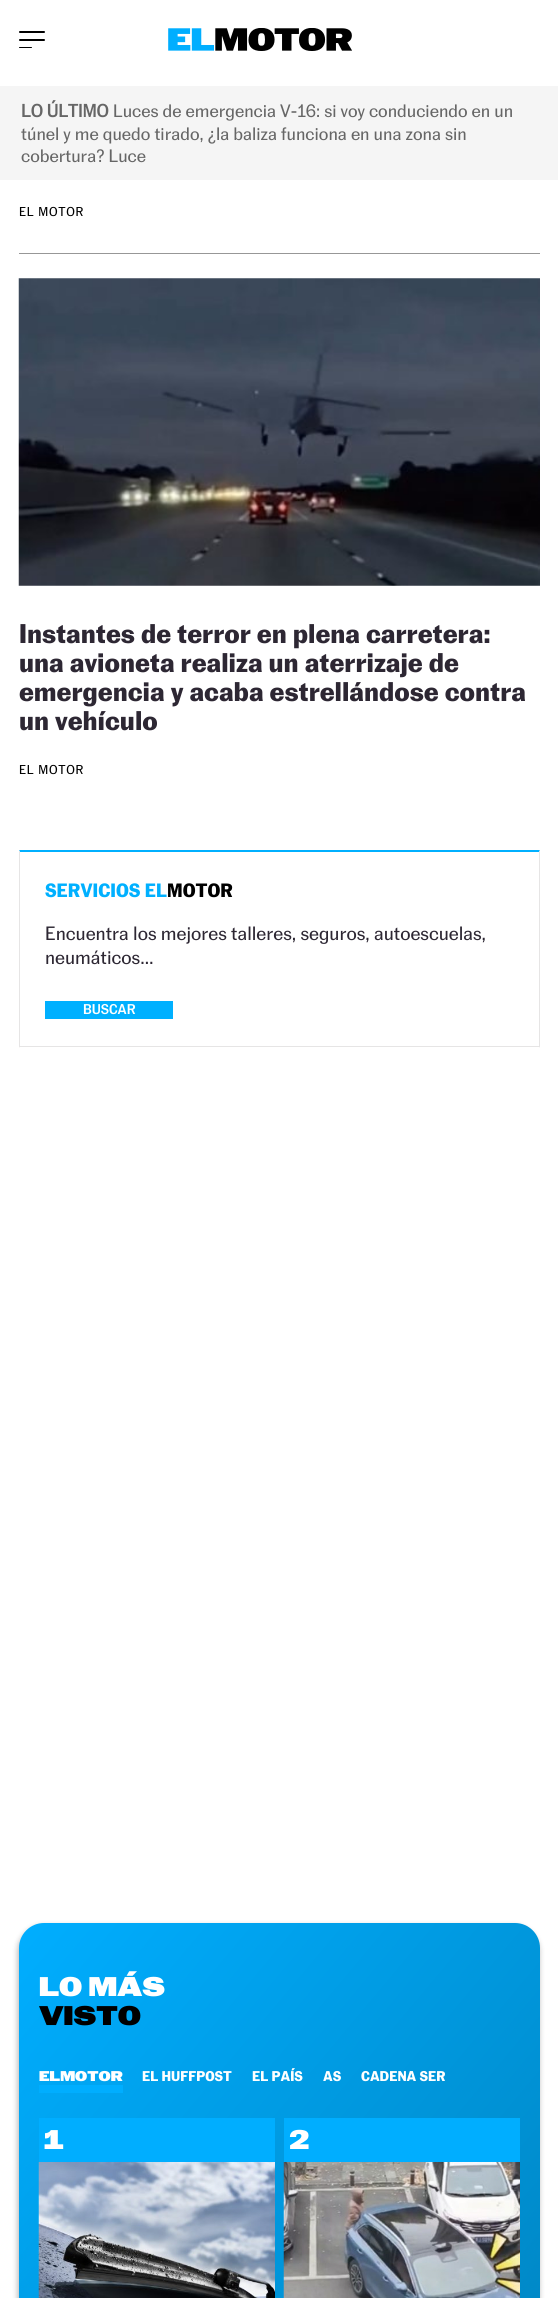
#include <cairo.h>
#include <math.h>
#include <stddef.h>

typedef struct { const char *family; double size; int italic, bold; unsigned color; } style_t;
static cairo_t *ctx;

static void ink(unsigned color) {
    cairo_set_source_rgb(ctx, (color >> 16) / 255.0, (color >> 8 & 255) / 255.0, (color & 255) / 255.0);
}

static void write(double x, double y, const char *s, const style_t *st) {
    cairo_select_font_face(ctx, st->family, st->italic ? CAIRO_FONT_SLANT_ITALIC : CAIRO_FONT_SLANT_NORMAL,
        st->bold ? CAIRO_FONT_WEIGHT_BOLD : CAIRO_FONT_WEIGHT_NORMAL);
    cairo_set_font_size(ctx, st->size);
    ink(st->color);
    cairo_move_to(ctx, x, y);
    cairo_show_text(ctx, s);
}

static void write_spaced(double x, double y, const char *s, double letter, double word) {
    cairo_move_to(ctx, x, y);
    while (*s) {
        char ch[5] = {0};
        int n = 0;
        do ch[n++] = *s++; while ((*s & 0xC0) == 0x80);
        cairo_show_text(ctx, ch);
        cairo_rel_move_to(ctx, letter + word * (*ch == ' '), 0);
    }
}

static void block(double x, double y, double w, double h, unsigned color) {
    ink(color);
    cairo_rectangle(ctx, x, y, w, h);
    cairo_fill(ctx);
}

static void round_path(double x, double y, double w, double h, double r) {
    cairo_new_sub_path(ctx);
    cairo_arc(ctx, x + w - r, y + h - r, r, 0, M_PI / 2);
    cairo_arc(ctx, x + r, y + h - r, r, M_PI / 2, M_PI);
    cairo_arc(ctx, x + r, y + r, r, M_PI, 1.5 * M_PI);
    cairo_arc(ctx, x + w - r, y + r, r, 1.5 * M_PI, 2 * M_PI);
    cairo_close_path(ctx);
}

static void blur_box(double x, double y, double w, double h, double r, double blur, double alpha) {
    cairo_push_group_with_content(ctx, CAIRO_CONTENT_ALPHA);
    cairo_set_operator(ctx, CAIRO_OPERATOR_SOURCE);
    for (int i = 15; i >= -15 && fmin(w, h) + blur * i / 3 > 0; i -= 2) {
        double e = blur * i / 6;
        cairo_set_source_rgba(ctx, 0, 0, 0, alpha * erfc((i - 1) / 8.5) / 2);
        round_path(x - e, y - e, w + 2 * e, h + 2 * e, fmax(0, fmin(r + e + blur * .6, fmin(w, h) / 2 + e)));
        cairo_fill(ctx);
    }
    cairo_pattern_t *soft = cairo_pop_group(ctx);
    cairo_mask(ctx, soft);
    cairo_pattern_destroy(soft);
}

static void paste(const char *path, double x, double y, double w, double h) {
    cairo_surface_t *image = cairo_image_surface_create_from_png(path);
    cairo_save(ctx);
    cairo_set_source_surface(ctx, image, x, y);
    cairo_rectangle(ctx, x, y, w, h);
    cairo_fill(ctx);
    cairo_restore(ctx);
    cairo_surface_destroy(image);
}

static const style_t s1 = {"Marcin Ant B", 17.5, 0, 1, 0x666666};
static const style_t s2 = {"Marcin Ant B", 17.5, 0, 0, 0x666666};
static const style_t s3 = {"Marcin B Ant", 26.25, 0, 1, 0x2d2733};
static const style_t s4 = {"Marcin B Ant", 18.75, 0, 1, 0x00b0ff};
static const style_t s5 = {"Marcin B Ant", 18.75, 0, 1, 0x000000};
static const style_t s6 = {"Marcin Ant B", 18.75, 0, 0, 0x2d2733};
static const style_t s7 = {"Marcin Ant B Medium", 13.75, 0, 0, 0xffffff};
static const style_t s8 = {"Marcin Ant B Black", 26.25, 0, 0, 0xffffff};
static const style_t s9 = {"Marcin Ant B Black", 26.25, 0, 0, 0x000000};
static const style_t s10 = {"Marcin Ant B Black", 13.75, 0, 0, 0xffffff};
static const style_t s11 = {"Marcin B Ant", 13.75, 0, 1, 0xffffff};

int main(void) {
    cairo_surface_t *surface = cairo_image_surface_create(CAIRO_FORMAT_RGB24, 558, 2298);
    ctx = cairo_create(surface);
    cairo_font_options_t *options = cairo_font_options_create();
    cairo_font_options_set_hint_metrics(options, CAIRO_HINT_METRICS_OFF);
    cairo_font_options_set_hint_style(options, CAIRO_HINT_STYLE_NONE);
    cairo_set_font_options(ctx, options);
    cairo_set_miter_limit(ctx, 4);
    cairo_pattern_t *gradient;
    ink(0xffffff);
    cairo_paint(ctx);
    ink(0x000000);
    round_path(19, 31, 26, 2, 1);
    cairo_fill(ctx);
    round_path(19, 39, 26, 2, 1);
    cairo_fill(ctx);
    round_path(19, 47, 13, 1, 0.5);
    cairo_fill(ctx);
    paste("pic1.png", 168, 28, 184, 23);
    block(0, 86, 558, 94, 0xf5f5f5);
    write(21, 117, "LO ÚLTIMO", &s1);
    write(113, 117, "Luces de emergencia V-16: si voy conduciendo en un", &s2);
    write(21, 140, "túnel y me quedo tirado, ¿la baliza funciona en una zona sin", &s2);
    write(21, 162, "cobertura? Luce", &s2);
    block(19, 253, 521, 1, 0x979797);
    cairo_set_font_size(ctx, 12.5);
    ink(0x000000);
    write_spaced(19, 216, "EL MOTOR", 0.75, 0);
    paste("pic2.png", 18, 278, 522, 308);
    write(19, 643, "Instantes de terror en plena carretera:", &s3);
    write(19, 672, "una avioneta realiza un aterrizaje de", &s3);
    write(19, 701, "emergencia y acaba estrellándose contra", &s3);
    write(19, 730, "un vehículo", &s3);
    cairo_select_font_face(ctx, "Marcin Ant B", CAIRO_FONT_SLANT_NORMAL, CAIRO_FONT_WEIGHT_NORMAL);
    cairo_set_font_size(ctx, 12.5);
    ink(0x000000);
    write_spaced(19, 774, "EL MOTOR", 0.75, 0);
    ink(0x00b0ff);
    cairo_new_path(ctx);
    cairo_move_to(ctx, 19, 850);
    cairo_line_to(ctx, 540, 850);
    cairo_line_to(ctx, 539, 852);
    cairo_line_to(ctx, 20, 852);
    cairo_close_path(ctx);
    cairo_fill(ctx);
    ink(0xe6e5e5);
    cairo_new_path(ctx);
    cairo_move_to(ctx, 540, 850);
    cairo_line_to(ctx, 540, 1048);
    cairo_line_to(ctx, 539, 1046);
    cairo_line_to(ctx, 539, 852);
    cairo_close_path(ctx);
    cairo_fill(ctx);
    block(19, 1046, 521, 1, 0xe6e5e5);
    cairo_new_path(ctx);
    cairo_move_to(ctx, 19, 1048);
    cairo_line_to(ctx, 19, 850);
    cairo_line_to(ctx, 20, 852);
    cairo_line_to(ctx, 20, 1046);
    cairo_close_path(ctx);
    cairo_fill(ctx);
    write(45, 897, "SERVICIOS EL", &s4);
    write(167, 897, "MOTOR", &s5);
    write(45, 940, "Encuentra los mejores talleres, seguros, autoescuelas,", &s6);
    write(45, 964, "neumáticos…", &s6);
    block(45, 1001, 128, 18, 0x00b0ff);
    write(83, 1014, "BUSCAR", &s7);
    ink(0x000000);
    blur_box(18, 1926, 521, 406, 25, 3, 0.31);
    gradient = cairo_pattern_create_linear(-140, 2111, 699, 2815);
    cairo_pattern_add_color_stop_rgba(gradient, 0, 0, 0.682, 1, 1);
    cairo_pattern_add_color_stop_rgba(gradient, 1, 0, 0.435, 0.631, 1);
    cairo_set_source(ctx, gradient);
    cairo_pattern_destroy(gradient);
    round_path(19, 1923, 521, 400, 25);
    cairo_fill(ctx);
    write(39, 1996, "LO MÁS", &s8);
    write(39, 2025, "VISTO", &s9);
    block(39, 2085, 84, 8, 0x00aeff);
    write(39, 2081, "ELMOTOR", &s10);
    write(142, 2081, "EL HUFFPOST", &s11);
    write(252, 2081, "EL PAÍS", &s11);
    write(323, 2081, "AS", &s11);
    write(361, 2081, "CADENA SER", &s11);
    block(39, 2118, 236, 44, 0x00aeff);
    write(44, 2149, "1", &s8);
    paste("pic3.png", 38, 2162, 237, 136);
    block(284, 2118, 236, 44, 0x00aeff);
    write(289, 2149, "2", &s8);
    paste("pic4.png", 283, 2162, 237, 136);
    cairo_surface_write_to_png(surface, "screenshot.png");
    cairo_font_options_destroy(options);
    cairo_destroy(ctx);
    cairo_surface_destroy(surface);
    return 0;
}
